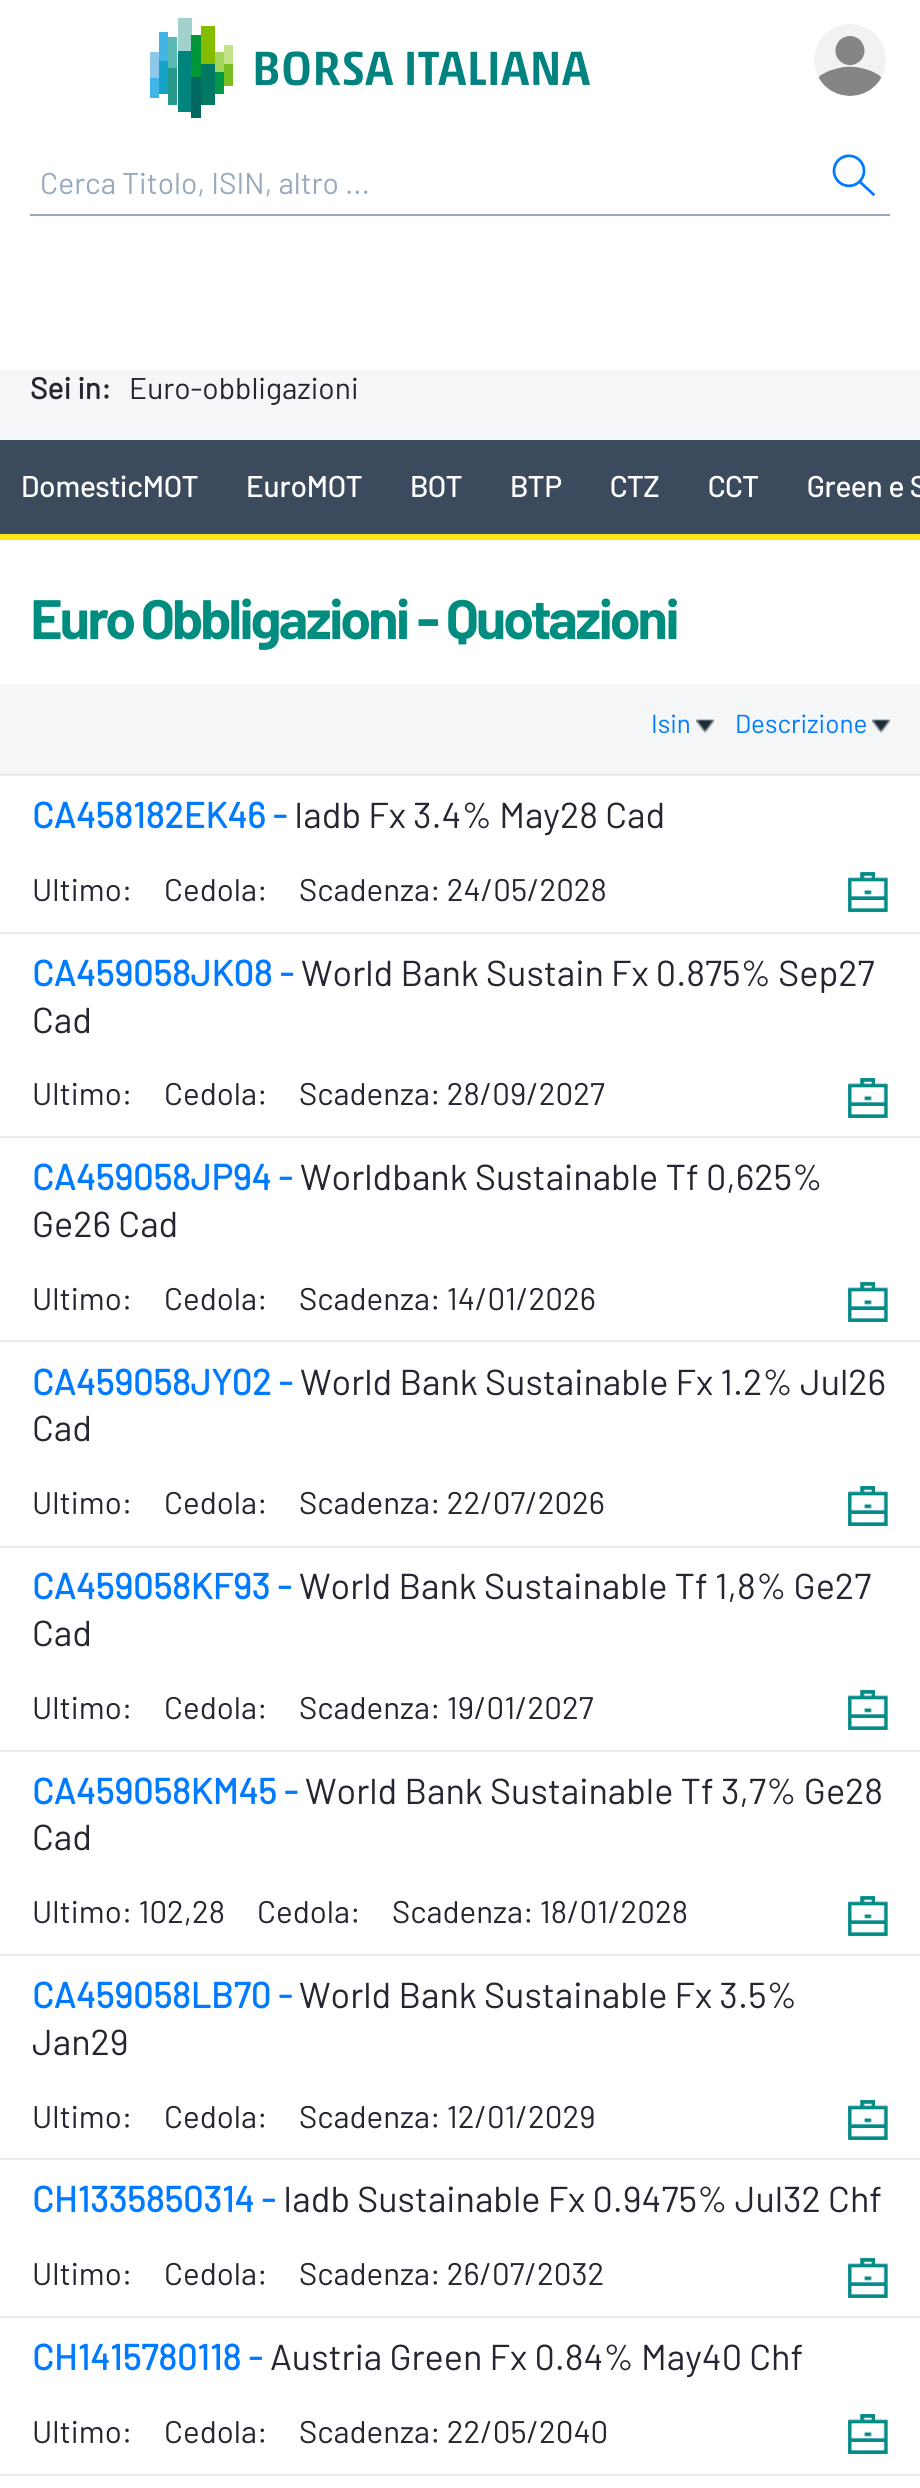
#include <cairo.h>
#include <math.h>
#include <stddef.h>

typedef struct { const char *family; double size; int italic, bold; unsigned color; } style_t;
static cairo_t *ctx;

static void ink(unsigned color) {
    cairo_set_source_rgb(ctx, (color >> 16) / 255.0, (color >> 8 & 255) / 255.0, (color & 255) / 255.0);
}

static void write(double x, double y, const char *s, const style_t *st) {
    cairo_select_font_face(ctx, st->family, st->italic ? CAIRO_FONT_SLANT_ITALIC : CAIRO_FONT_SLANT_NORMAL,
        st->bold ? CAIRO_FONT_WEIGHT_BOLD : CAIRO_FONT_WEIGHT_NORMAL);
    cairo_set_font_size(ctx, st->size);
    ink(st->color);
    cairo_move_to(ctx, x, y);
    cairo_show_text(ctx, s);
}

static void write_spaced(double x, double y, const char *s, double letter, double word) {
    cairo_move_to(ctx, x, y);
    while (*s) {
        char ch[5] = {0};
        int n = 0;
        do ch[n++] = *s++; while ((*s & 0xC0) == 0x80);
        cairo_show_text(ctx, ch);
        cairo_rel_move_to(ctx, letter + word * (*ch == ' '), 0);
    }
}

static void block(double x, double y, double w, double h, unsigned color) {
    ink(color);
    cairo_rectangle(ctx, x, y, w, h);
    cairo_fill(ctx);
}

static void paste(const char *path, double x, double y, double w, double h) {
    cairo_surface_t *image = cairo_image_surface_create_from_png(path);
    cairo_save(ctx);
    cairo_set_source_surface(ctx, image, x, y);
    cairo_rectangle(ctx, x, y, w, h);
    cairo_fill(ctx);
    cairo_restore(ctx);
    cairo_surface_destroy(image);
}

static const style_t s1 = {"Barlow", 30, 0, 0, 0x98a9bc};
static const style_t s2 = {"Barlow", 30, 0, 1, 0x252631};
static const style_t s3 = {"Barlow", 30, 0, 0, 0x252631};
static const style_t s4 = {"Barlow Medium", 30, 0, 0, 0xffffff};
static const style_t s5 = {"Barlow", 26, 0, 0, 0x007aff};
static const style_t s6 = {"Barlow", 36, 0, 1, 0x007aff};
static const style_t s7 = {"Barlow", 36, 0, 0, 0x252631};
static const style_t s8 = {"Barlow", 31.25, 0, 0, 0x252631};

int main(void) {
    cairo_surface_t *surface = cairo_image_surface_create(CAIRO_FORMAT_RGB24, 920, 2488);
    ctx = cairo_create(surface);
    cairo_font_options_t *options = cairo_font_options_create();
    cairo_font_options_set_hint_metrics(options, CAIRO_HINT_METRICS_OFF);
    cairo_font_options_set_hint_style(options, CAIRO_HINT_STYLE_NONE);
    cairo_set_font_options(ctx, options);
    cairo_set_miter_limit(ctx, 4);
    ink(0xffffff);
    cairo_paint(ctx);
    paste("pic1.png", 150, 18, 440, 100);
    paste("pic2.png", 814, 24, 72, 72);
    block(30, 214, 860, 2, 0x98a9bc);
    write(40, 194, "Cerca Titolo, ISIN, altro ...", &s1);
    paste("pic3.png", 832, 154, 44, 43);
    block(0, 370, 920, 70, 0xf5f6f7);
    write(30, 399, "Sei in:", &s2);
    write(129, 399, "Euro-obbligazioni", &s3);
    block(0, 440, 920, 94, 0x3b4b5d);
    block(0, 534, 920, 6, 0xf8e71c);
    write(21, 497, "DomesticMOT", &s4);
    write(246, 497, "EuroMOT", &s4);
    write(410, 497, "BOT", &s4);
    write(510, 497, "BTP", &s4);
    write(610, 497, "CTZ", &s4);
    write(708, 497, "CCT", &s4);
    write(807, 497, "Green e S", &s4);
    cairo_select_font_face(ctx, "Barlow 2", CAIRO_FONT_SLANT_NORMAL, CAIRO_FONT_WEIGHT_BOLD);
    cairo_set_font_size(ctx, 55.5);
    ink(0x008d7f);
    write_spaced(30, 639, "Euro Obbligazioni - Quotazioni", -3, 0);
    block(0, 684, 920, 90, 0xf5f6f7);
    write(651, 733, "Isin", &s5);
    paste("pic4.png", 696, 719, 18, 14);
    write(735, 733, "Descrizione", &s5);
    paste("pic4.png", 872, 719, 18, 14);
    block(0, 774, 920, 2, 0xe8ecef);
    write(32, 828, "CA458182EK46 -", &s6);
    write(294, 828, "Iadb Fx 3.4% May28 Cad", &s7);
    write(32, 901, "Ultimo:", &s8);
    write(164, 901, "Cedola:", &s8);
    write(299, 901, "Scadenza: 24/05/2028", &s8);
    paste("pic5.png", 848, 872, 40, 40);
    block(0, 932, 920, 2, 0xe8ecef);
    write(32, 986, "CA459058JK08 -", &s6);
    write(301, 986, "World Bank Sustain Fx 0.875% Sep27", &s7);
    write(32, 1033, "Cad", &s7);
    write(32, 1105, "Ultimo:", &s8);
    write(164, 1105, "Cedola:", &s8);
    write(299, 1105, "Scadenza: 28/09/2027", &s8);
    paste("pic6.png", 848, 1078, 40, 40);
    block(0, 1136, 920, 2, 0xe8ecef);
    write(32, 1190, "CA459058JP94 -", &s6);
    write(300, 1190, "Worldbank Sustainable Tf 0,625%", &s7);
    write(32, 1237, "Ge26 Cad", &s7);
    write(32, 1310, "Ultimo:", &s8);
    write(164, 1310, "Cedola:", &s8);
    write(299, 1310, "Scadenza: 14/01/2026", &s8);
    paste("pic7.png", 848, 1282, 40, 40);
    block(0, 1340, 920, 2, 0xe8ecef);
    write(32, 1395, "CA459058JY02 -", &s6);
    write(300, 1395, "World Bank Sustainable Fx 1.2% Jul26", &s7);
    write(32, 1441, "Cad", &s7);
    write(32, 1514, "Ultimo:", &s8);
    write(164, 1514, "Cedola:", &s8);
    write(299, 1514, "Scadenza: 22/07/2026", &s8);
    paste("pic6.png", 848, 1486, 40, 40);
    block(0, 1546, 920, 2, 0xe8ecef);
    write(32, 1599, "CA459058KF93 -", &s6);
    write(299, 1599, "World Bank Sustainable Tf 1,8% Ge27", &s7);
    write(32, 1646, "Cad", &s7);
    write(32, 1719, "Ultimo:", &s8);
    write(164, 1719, "Cedola:", &s8);
    write(299, 1719, "Scadenza: 19/01/2027", &s8);
    paste("pic6.png", 848, 1690, 40, 40);
    block(0, 1750, 920, 2, 0xe8ecef);
    write(32, 1804, "CA459058KM45 -", &s6);
    write(305, 1804, "World Bank Sustainable Tf 3,7% Ge28", &s7);
    write(32, 1850, "Cad", &s7);
    write(32, 1923, "Ultimo: 102,28", &s8);
    write(257, 1923, "Cedola:", &s8);
    write(392, 1923, "Scadenza: 18/01/2028", &s8);
    paste("pic6.png", 848, 1896, 40, 40);
    block(0, 1954, 920, 2, 0xe8ecef);
    write(32, 2008, "CA459058LB70 -", &s6);
    write(299, 2008, "World Bank Sustainable Fx 3.5%", &s7);
    write(32, 2055, "Jan29", &s7);
    write(32, 2128, "Ultimo:", &s8);
    write(164, 2128, "Cedola:", &s8);
    write(299, 2128, "Scadenza: 12/01/2029", &s8);
    paste("pic5.png", 848, 2100, 40, 40);
    block(0, 2158, 920, 2, 0xe8ecef);
    write(32, 2212, "CH1335850314 -", &s6);
    write(283, 2212, "Iadb Sustainable Fx 0.9475% Jul32 Chf", &s7);
    write(32, 2285, "Ultimo:", &s8);
    write(164, 2285, "Cedola:", &s8);
    write(299, 2285, "Scadenza: 26/07/2032", &s8);
    paste("pic6.png", 848, 2258, 40, 40);
    block(0, 2316, 920, 2, 0xe8ecef);
    write(32, 2370, "CH1415780118 -", &s6);
    write(270, 2370, "Austria Green Fx 0.84% May40 Chf", &s7);
    write(32, 2443, "Ultimo:", &s8);
    write(164, 2443, "Cedola:", &s8);
    write(299, 2443, "Scadenza: 22/05/2040", &s8);
    paste("pic6.png", 848, 2414, 40, 40);
    block(0, 2474, 920, 2, 0xe8ecef);
    cairo_surface_write_to_png(surface, "screenshot.png");
    cairo_font_options_destroy(options);
    cairo_destroy(ctx);
    cairo_surface_destroy(surface);
    return 0;
}
